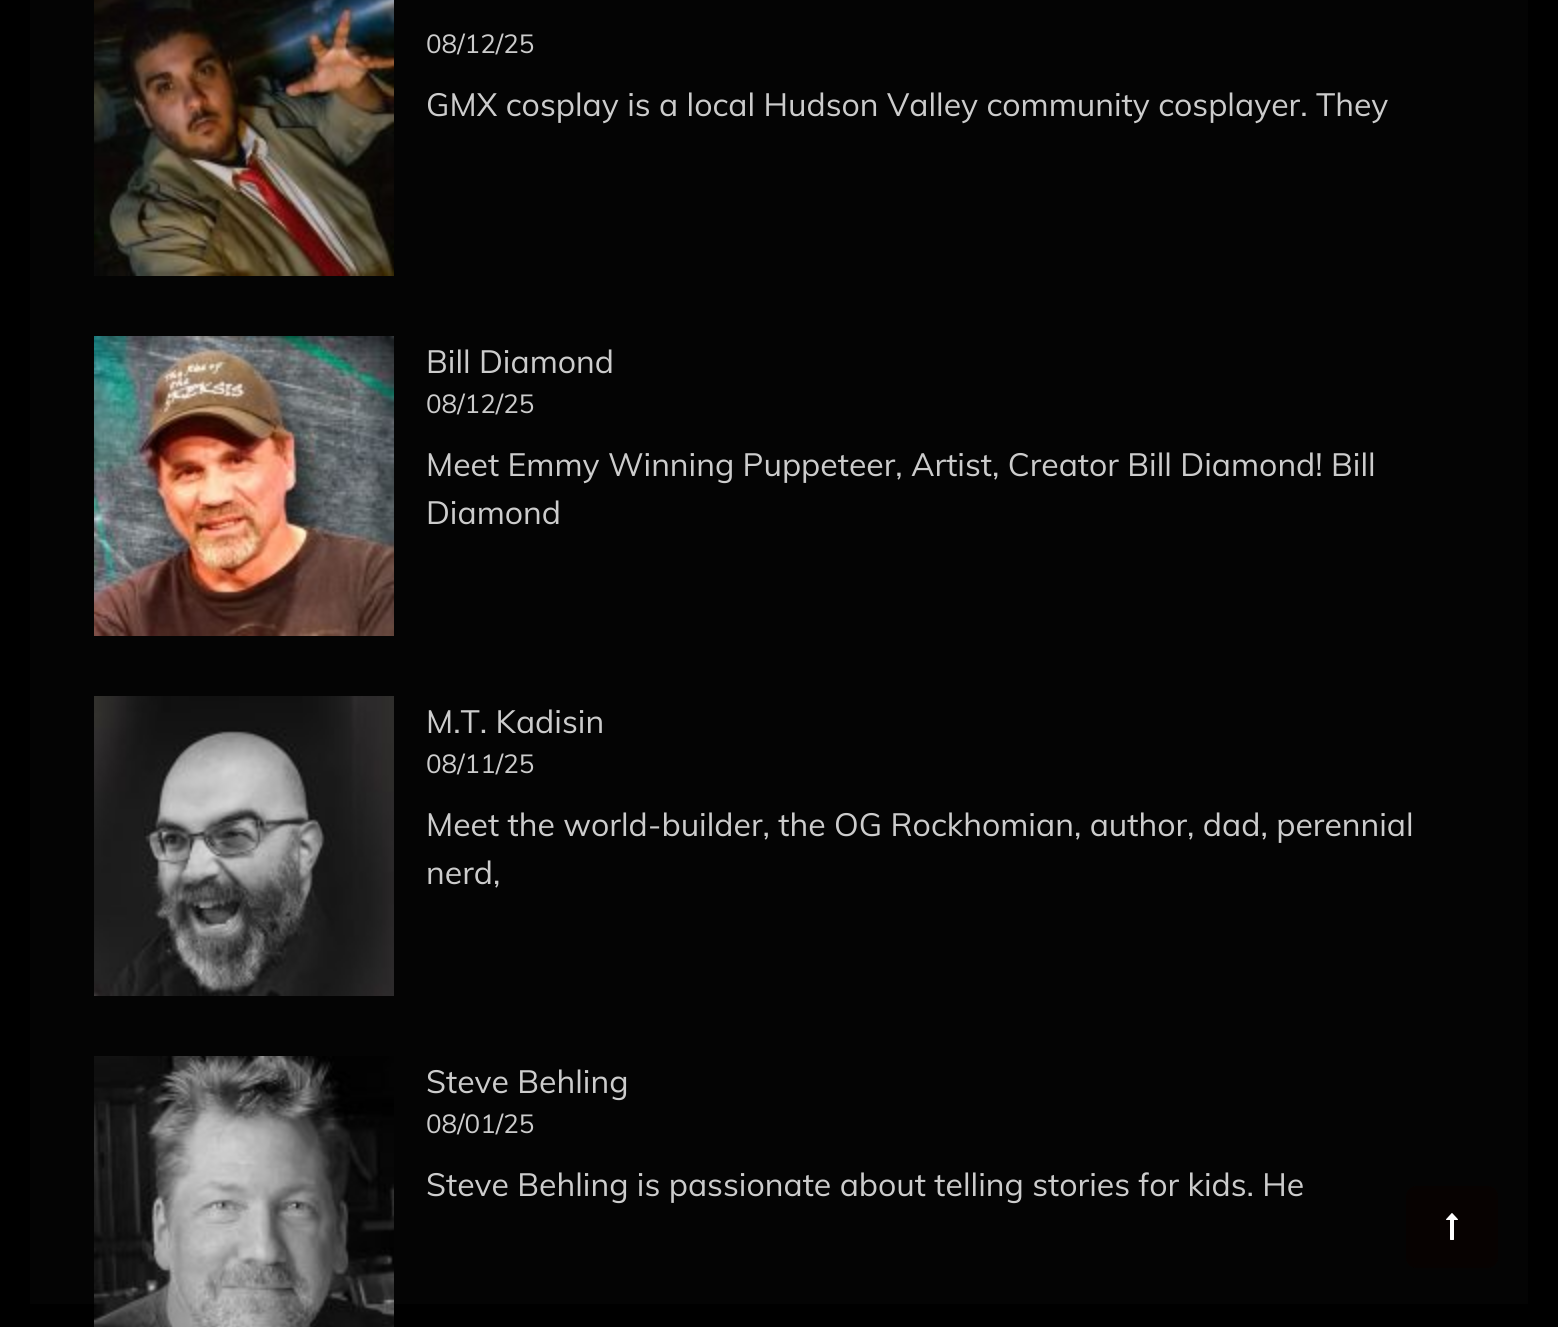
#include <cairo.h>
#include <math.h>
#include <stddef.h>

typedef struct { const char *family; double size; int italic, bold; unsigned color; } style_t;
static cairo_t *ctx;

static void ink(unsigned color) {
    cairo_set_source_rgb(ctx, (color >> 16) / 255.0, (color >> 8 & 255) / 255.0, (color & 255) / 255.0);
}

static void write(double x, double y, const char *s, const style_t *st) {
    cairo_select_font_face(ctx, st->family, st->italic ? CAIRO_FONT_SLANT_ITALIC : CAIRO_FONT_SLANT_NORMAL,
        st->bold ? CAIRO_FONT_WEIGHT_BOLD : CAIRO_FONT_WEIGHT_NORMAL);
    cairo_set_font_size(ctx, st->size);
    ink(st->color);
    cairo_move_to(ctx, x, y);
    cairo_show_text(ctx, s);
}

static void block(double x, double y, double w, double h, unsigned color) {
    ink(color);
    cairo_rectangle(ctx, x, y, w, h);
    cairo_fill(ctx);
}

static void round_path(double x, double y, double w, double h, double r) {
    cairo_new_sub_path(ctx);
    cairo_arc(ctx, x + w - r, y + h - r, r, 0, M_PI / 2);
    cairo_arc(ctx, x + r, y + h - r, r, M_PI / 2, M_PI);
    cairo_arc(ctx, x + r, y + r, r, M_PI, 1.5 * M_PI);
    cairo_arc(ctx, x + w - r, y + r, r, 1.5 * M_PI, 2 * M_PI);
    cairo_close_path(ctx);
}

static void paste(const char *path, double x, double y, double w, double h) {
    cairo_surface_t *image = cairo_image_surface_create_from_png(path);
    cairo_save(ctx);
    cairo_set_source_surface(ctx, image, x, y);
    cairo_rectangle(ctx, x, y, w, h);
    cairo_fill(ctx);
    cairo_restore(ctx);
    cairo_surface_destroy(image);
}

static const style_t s1 = {"Muli", 26, 0, 0, 0xcccccc};
static const style_t s2 = {"Muli", 32, 0, 0, 0xcccccc};

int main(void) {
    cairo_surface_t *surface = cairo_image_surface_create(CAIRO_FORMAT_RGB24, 1558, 1327);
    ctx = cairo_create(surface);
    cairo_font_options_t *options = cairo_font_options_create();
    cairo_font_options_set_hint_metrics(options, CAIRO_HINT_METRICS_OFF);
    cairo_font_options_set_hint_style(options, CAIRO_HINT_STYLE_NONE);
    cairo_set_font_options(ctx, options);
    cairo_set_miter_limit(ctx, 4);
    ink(0x000000);
    cairo_paint(ctx);
    block(30, 0, 1498, 1304, 0x040404);
    paste("pic1.png", 94, 0, 300, 276);
    write(426, 53, "08/12/25", &s1);
    write(426, 116, "GMX cosplay is a local Hudson Valley community cosplayer. They", &s2);
    paste("pic2.png", 94, 336, 300, 300);
    write(426, 373, "Bill Diamond", &s2);
    write(426, 413, "08/12/25", &s1);
    write(426, 476, "Meet Emmy Winning Puppeteer, Artist, Creator Bill Diamond! Bill", &s2);
    write(426, 524, "Diamond", &s2);
    paste("pic3.png", 94, 696, 300, 300);
    write(426, 733, "M.T. Kadisin", &s2);
    write(426, 773, "08/11/25", &s1);
    write(426, 836, "Meet the world-builder, the OG Rockhomian, author, dad, perennial", &s2);
    write(426, 884, "nerd,", &s2);
    paste("pic4.png", 94, 1056, 300, 271);
    write(426, 1093, "Steve Behling", &s2);
    write(426, 1133, "08/01/25", &s1);
    write(426, 1196, "Steve Behling is passionate about telling stories for kids. He", &s2);
    ink(0x070201);
    round_path(1406, 1186, 92, 82, 10);
    cairo_fill(ctx);
    paste("pic5.png", 1446, 1213, 12, 27);
    cairo_surface_write_to_png(surface, "screenshot.png");
    cairo_font_options_destroy(options);
    cairo_destroy(ctx);
    cairo_surface_destroy(surface);
    return 0;
}
